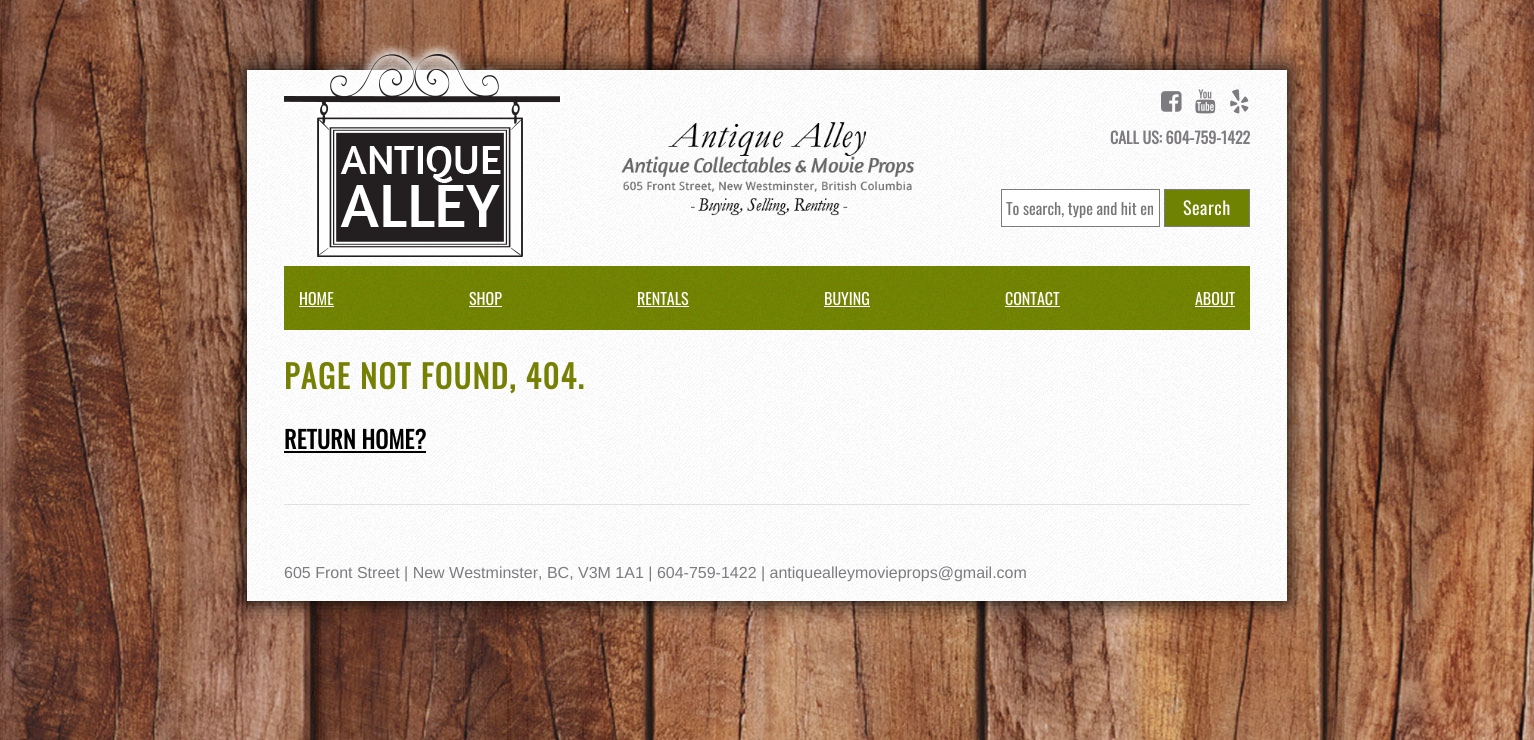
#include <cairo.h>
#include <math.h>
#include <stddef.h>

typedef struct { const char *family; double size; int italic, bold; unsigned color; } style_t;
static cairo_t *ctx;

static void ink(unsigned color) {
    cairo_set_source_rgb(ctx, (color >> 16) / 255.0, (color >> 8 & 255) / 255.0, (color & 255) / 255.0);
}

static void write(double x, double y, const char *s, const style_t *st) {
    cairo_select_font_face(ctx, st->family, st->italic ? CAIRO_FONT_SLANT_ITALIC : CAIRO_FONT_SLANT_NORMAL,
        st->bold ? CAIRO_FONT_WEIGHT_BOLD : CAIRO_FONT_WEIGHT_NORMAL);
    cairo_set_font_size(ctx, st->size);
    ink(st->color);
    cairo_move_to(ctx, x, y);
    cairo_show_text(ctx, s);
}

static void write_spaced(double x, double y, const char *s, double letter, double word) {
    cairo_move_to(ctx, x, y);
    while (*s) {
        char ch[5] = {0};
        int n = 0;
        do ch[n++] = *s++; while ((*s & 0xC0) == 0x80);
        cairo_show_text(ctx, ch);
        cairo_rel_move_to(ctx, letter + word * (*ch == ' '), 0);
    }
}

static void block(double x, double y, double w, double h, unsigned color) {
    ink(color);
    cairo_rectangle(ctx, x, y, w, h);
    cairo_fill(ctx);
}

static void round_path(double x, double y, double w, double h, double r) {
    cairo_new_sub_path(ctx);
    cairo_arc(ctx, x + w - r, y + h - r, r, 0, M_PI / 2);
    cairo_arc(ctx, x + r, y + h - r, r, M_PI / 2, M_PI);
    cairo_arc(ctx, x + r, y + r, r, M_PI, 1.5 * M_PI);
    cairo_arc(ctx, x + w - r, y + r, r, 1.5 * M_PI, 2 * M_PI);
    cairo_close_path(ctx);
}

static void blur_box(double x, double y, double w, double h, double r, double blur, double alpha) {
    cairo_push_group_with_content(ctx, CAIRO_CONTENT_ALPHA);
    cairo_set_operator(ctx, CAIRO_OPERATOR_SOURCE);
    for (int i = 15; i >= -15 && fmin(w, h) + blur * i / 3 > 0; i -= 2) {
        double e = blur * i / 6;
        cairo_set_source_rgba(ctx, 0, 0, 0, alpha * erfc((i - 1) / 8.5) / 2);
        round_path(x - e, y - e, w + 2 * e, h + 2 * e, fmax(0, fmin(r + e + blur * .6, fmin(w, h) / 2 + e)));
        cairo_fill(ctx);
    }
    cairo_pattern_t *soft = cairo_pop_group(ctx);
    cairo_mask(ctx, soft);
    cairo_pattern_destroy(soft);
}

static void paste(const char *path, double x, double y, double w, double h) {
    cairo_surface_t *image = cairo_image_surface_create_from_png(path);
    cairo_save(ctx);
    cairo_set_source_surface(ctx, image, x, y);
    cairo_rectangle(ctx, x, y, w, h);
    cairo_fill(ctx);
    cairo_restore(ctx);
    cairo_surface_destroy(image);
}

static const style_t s1 = {"Oswald", 16, 0, 1, 0x7d7b80};
static const style_t s2 = {"Oswald", 16, 0, 0, 0x757575};
static const style_t s3 = {"Oswald", 16, 0, 0, 0xffffff};
static const style_t s4 = {"Liberation Sans", 16, 0, 0, 0x7d7b80};

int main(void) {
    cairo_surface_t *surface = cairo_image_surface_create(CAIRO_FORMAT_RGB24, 1534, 740);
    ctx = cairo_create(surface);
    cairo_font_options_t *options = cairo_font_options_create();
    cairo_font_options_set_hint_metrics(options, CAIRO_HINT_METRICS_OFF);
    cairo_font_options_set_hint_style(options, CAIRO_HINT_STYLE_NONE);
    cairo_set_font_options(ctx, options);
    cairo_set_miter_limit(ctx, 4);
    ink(0xffffff);
    cairo_paint(ctx);
    paste("pic1.png", 0, 0, 1534, 740);
    ink(0x000000);
    blur_box(247, 70, 1040, 531, 0, 10, 1);
    paste("pic2.png", 247, 70, 1040, 531);
    paste("pic3.png", 284, 45, 279, 216);
    paste("pic4.png", 621, 122, 294, 94);
    paste("pic5.png", 1161, 91, 21, 21);
    paste("pic6.png", 1195, 89, 21, 25);
    paste("pic7.png", 1230, 89, 19, 25);
    write(1110, 144, "CALL US: 604-759-1422", &s1);
    ink(0xffffff);
    cairo_rectangle(ctx, 1001.5, 189.5, 158, 37);
    cairo_fill_preserve(ctx);
    ink(0x7d7b80);
    cairo_set_line_width(ctx, 1);
    cairo_stroke(ctx);
    cairo_save(ctx);
    cairo_rectangle(ctx, 1006, 196, 147, 24);
    cairo_clip(ctx);
    write(1006, 215, "To search, type and hit en", &s2);
    cairo_restore(ctx);
    ink(0x708202);
    cairo_rectangle(ctx, 1164.5, 189.5, 85, 37);
    cairo_fill_preserve(ctx);
    ink(0x7d7b80);
    cairo_stroke(ctx);
    cairo_select_font_face(ctx, "Oswald", CAIRO_FONT_SLANT_NORMAL, CAIRO_FONT_WEIGHT_NORMAL);
    cairo_set_font_size(ctx, 18);
    ink(0xffffff);
    write_spaced(1183, 215, "Search", 0.5, 0);
    paste("pic8.png", 284, 266, 966, 64);
    write(299, 305, "HOME", &s3);
    block(299, 306, 35, 1, 0xffffff);
    write(469, 305, "SHOP", &s3);
    block(469, 306, 33, 1, 0xffffff);
    write(637, 305, "RENTALS", &s3);
    block(637, 306, 52, 1, 0xffffff);
    write(824, 305, "BUYING", &s3);
    block(824, 306, 46, 1, 0xffffff);
    write(1005, 305, "CONTACT", &s3);
    block(1005, 306, 55, 1, 0xffffff);
    write(1195, 305, "ABOUT", &s3);
    block(1195, 306, 40, 1, 0xffffff);
    cairo_select_font_face(ctx, "Oswald", CAIRO_FONT_SLANT_NORMAL, CAIRO_FONT_WEIGHT_BOLD);
    cairo_set_font_size(ctx, 32);
    ink(0x768003);
    write_spaced(284, 389, "PAGE NOT FOUND, 404.", 1.5, 0);
    cairo_set_font_size(ctx, 24);
    ink(0x000000);
    write_spaced(284, 449, "RETURN HOME?", 0.25, 0);
    block(284, 451, 142, 2, 0x000000);
    block(284, 504, 966, 1, 0xe1e1e1);
    write(284, 578, "605 Front Street | New Westminster, BC, V3M 1A1 | 604-759-1422 | antiquealleymovieprops@gmail.com", &s4);
    cairo_surface_write_to_png(surface, "screenshot.png");
    cairo_font_options_destroy(options);
    cairo_destroy(ctx);
    cairo_surface_destroy(surface);
    return 0;
}
